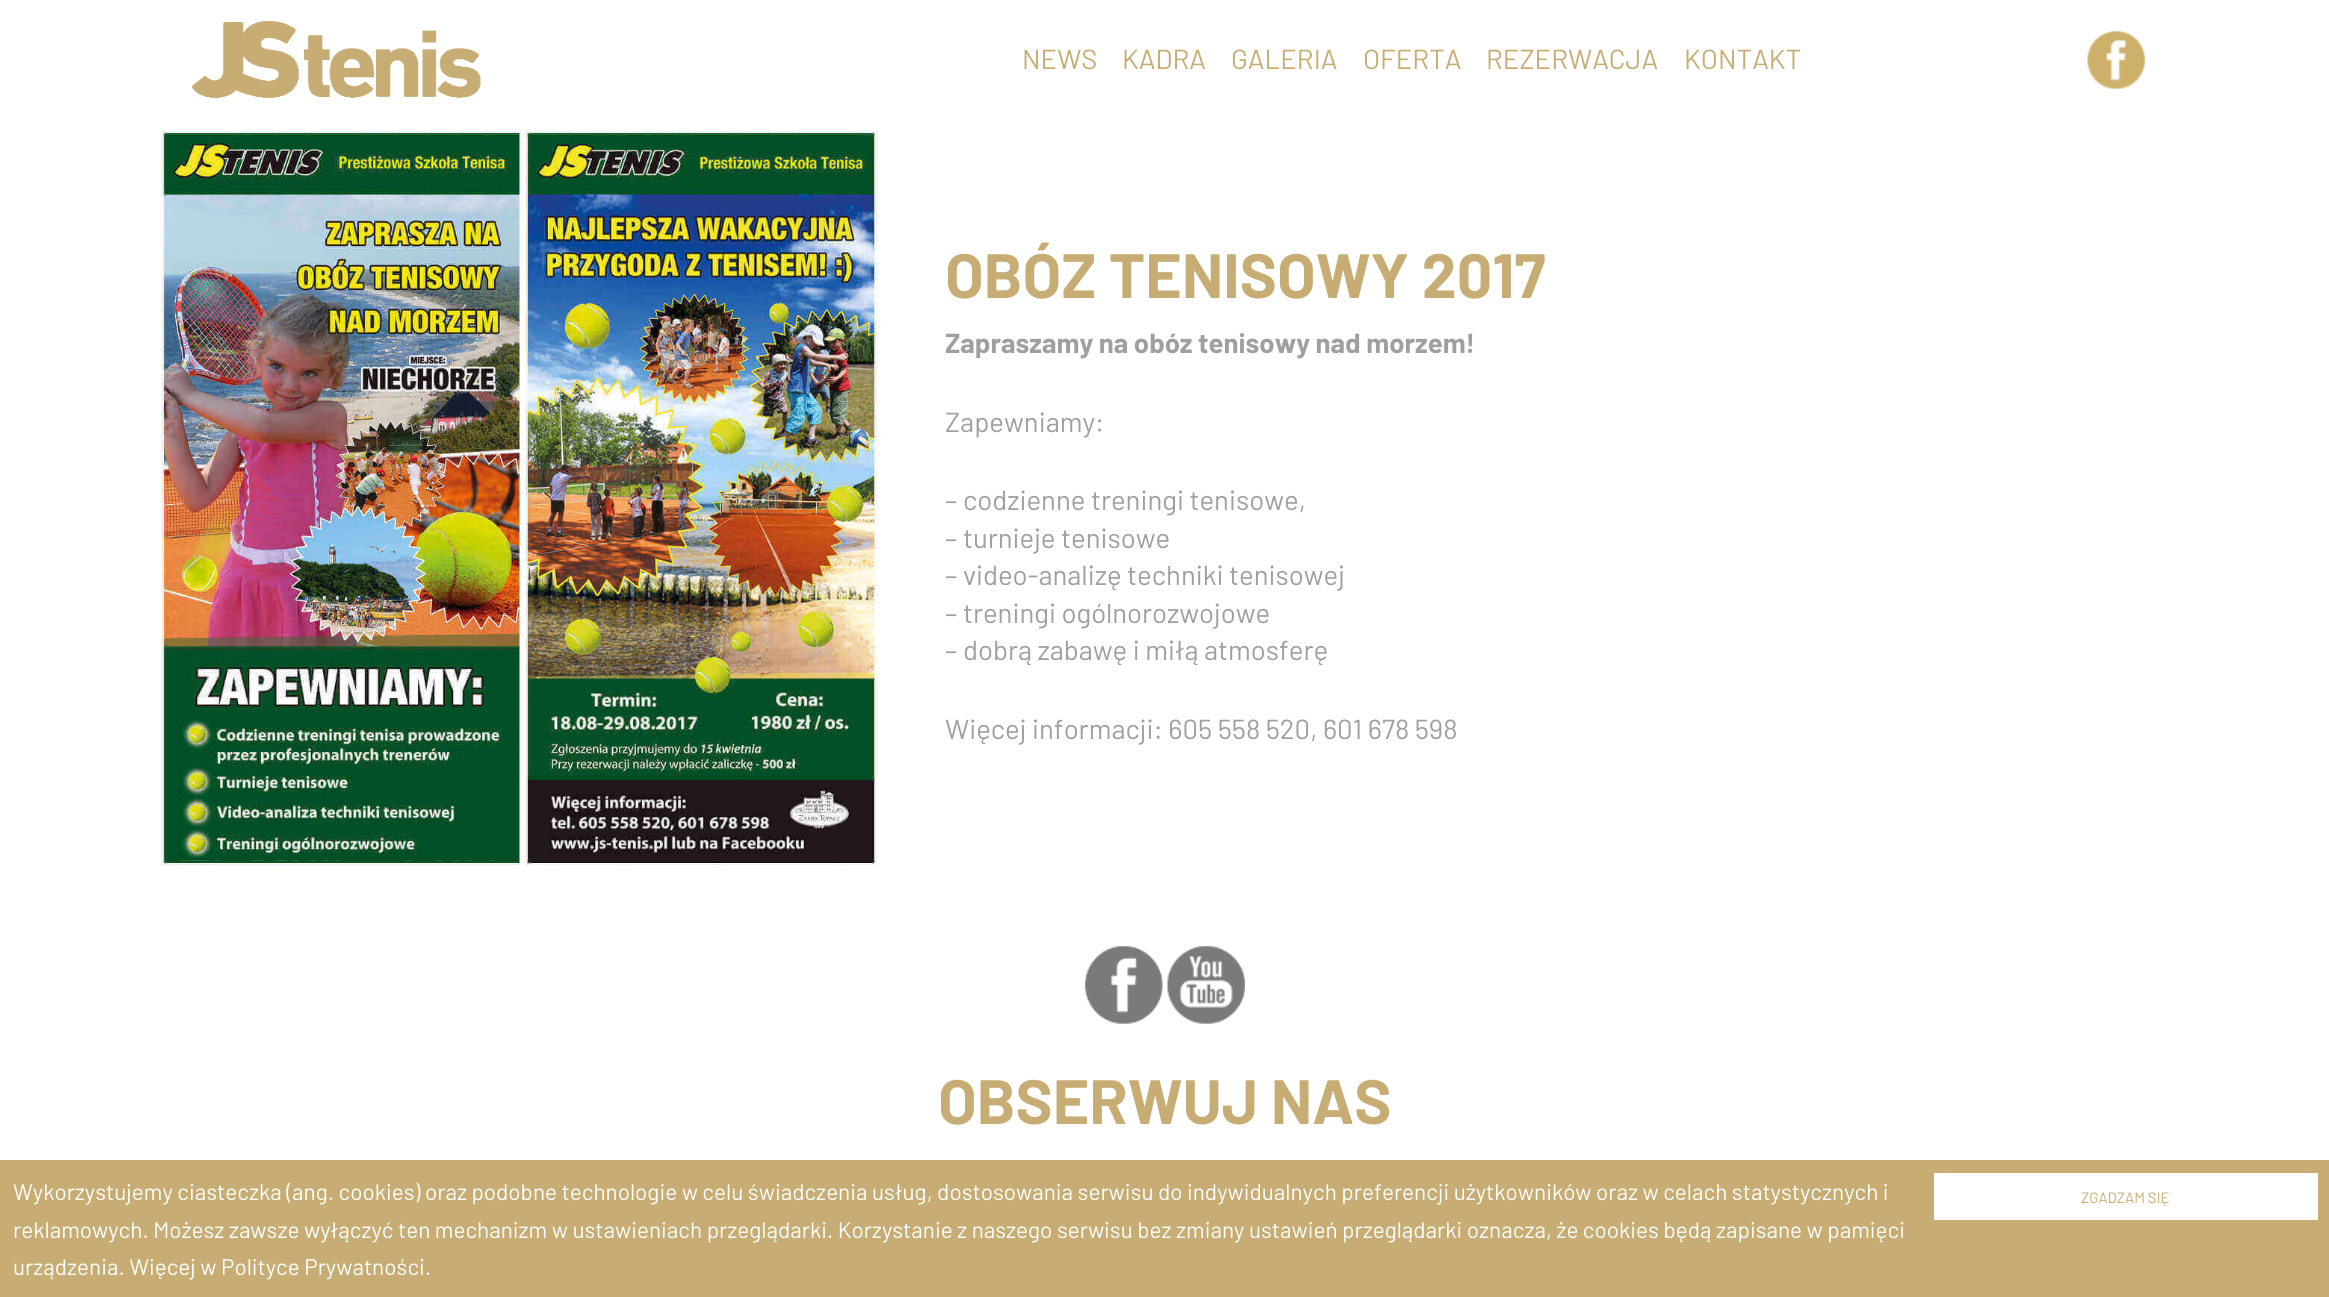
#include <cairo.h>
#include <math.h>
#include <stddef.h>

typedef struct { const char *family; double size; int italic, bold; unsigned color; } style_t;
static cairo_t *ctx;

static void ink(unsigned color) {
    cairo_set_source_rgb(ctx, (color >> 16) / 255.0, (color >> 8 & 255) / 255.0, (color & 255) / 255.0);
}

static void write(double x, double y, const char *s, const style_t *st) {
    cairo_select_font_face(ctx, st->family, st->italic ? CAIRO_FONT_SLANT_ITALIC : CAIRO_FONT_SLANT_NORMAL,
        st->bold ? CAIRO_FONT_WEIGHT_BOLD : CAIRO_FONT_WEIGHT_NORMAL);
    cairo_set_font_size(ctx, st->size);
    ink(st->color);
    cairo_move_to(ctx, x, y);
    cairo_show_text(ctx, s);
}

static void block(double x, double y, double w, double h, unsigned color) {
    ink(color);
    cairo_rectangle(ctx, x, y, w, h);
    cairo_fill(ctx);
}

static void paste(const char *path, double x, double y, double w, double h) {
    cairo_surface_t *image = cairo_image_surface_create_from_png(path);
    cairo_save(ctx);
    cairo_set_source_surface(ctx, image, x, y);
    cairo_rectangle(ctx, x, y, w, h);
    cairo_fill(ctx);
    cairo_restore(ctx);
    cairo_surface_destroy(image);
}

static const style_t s1 = {"Barlow", 27.5, 0, 0, 0xc7ac73};
static const style_t s2 = {"Barlow", 62.5, 0, 1, 0xc7ac73};
static const style_t s3 = {"Barlow", 27.5, 0, 1, 0x9f9f9f};
static const style_t s4 = {"Barlow", 27.5, 0, 0, 0x9f9f9f};
static const style_t s5 = {"Barlow", 22.5, 0, 0, 0xffffff};
static const style_t s6 = {"Barlow", 15, 0, 0, 0xc7ac73};

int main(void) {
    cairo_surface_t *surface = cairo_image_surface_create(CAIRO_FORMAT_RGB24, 2329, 1297);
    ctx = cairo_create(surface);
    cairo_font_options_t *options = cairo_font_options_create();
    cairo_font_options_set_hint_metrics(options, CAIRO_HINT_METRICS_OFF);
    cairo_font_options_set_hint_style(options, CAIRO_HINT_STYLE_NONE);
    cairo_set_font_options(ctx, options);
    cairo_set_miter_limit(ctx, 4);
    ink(0xffffff);
    cairo_paint(ctx);
    paste("pic1.png", 192, 21, 289, 77);
    write(1022, 69, "NEWS", &s1);
    write(1122, 69, "KADRA", &s1);
    write(1231, 69, "GALERIA", &s1);
    write(1363, 69, "OFERTA", &s1);
    write(1486, 69, "REZERWACJA", &s1);
    write(1684, 69, "KONTAKT", &s1);
    paste("pic2.png", 2087, 31, 59, 58);
    paste("pic3.png", 161, 131, 717, 735);
    write(945, 298, "OBÓZ TENISOWY 2017", &s2);
    write(945, 353, "Zapraszamy na obóz tenisowy nad morzem!", &s3);
    write(945, 432, "Zapewniamy:", &s4);
    write(945, 510, "– codzienne treningi tenisowe,", &s4);
    write(945, 548, "– turnieje tenisowe", &s4);
    write(945, 585, "– video-analizę techniki tenisowej", &s4);
    write(945, 623, "– treningi ogólnorozwojowe", &s4);
    write(945, 660, "– dobrą zabawę i miłą atmosferę", &s4);
    write(945, 739, "Więcej informacji: 605 558 520, 601 678 598", &s4);
    paste("pic4.png", 1085, 946, 78, 78);
    paste("pic5.png", 1167, 946, 78, 78);
    write(938, 1124, "OBSERWUJ NAS", &s2);
    block(0, 1160, 2329, 137, 0xc7ac73);
    write(13, 1200, "Wykorzystujemy ciasteczka (ang. cookies) oraz podobne technologie w celu świadczenia usług, dostosowania serwisu do indywidualnych preferencji użytkowników oraz w celach statystycznych i", &s5);
    write(13, 1238, "reklamowych. Możesz zawsze wyłączyć ten mechanizm w ustawieniach przeglądarki. Korzystanie z naszego serwisu bez zmiany ustawień przeglądarki oznacza, że cookies będą zapisane w pamięci", &s5);
    write(13, 1275, "urządzenia. Więcej w Polityce Prywatności.", &s5);
    block(1934, 1173, 384, 47, 0xffffff);
    write(2081, 1203, "ZGADZAM SIĘ", &s6);
    cairo_surface_write_to_png(surface, "screenshot.png");
    cairo_font_options_destroy(options);
    cairo_destroy(ctx);
    cairo_surface_destroy(surface);
    return 0;
}
